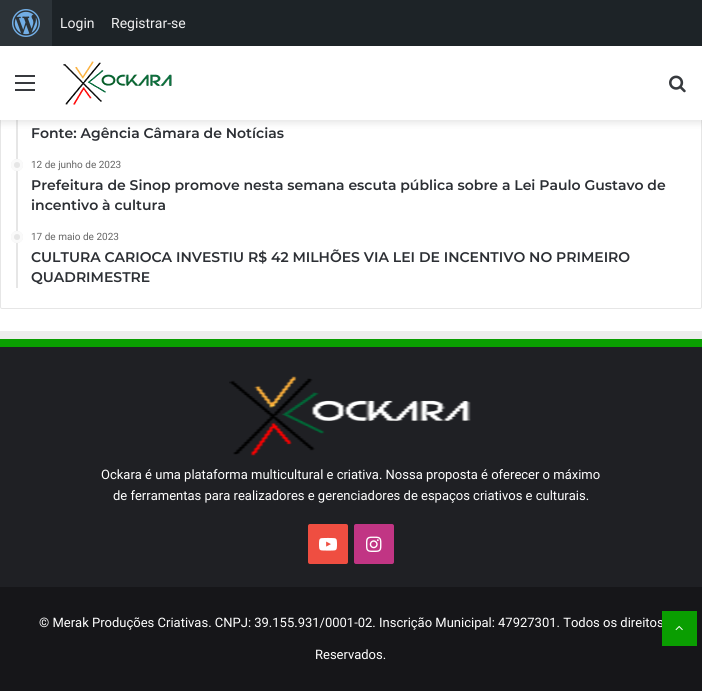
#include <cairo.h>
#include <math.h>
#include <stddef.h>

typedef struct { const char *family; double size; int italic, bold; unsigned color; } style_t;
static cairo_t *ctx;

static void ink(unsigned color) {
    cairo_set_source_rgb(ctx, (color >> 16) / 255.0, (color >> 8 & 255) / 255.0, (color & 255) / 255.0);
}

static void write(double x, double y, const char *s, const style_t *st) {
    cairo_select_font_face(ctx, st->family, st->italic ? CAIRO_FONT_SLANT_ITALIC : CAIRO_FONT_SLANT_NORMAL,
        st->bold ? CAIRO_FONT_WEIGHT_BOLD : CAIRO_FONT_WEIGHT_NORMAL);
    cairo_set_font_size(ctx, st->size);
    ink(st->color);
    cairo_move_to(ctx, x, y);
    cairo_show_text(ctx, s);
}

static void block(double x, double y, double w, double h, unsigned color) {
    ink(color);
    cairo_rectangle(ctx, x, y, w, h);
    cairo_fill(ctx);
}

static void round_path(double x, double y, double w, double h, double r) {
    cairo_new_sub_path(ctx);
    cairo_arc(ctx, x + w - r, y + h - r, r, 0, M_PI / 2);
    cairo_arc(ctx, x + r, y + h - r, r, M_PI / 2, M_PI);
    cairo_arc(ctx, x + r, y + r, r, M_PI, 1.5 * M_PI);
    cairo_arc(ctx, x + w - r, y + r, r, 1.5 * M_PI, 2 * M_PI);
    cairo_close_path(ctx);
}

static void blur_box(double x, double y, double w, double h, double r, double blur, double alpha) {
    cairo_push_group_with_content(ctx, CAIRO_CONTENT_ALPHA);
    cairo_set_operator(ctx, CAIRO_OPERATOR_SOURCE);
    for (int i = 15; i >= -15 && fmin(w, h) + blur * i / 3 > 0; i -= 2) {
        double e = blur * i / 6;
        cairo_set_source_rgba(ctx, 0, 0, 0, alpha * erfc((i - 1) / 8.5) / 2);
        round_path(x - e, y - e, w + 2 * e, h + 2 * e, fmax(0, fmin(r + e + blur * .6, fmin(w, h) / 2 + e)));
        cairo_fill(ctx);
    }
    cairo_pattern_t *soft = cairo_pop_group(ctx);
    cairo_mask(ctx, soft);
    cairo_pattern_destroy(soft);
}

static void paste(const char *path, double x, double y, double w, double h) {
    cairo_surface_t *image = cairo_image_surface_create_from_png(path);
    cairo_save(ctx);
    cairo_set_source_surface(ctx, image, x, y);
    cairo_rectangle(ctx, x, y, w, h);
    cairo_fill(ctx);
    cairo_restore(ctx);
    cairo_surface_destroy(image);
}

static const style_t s1 = {"Roboto", 14, 0, 0, 0xf0f0f1};
static const style_t s2 = {"Montserrat SemiBold", 14, 0, 0, 0x2c2f34};
static const style_t s3 = {"Roboto", 10, 0, 0, 0x666666};
static const style_t s4 = {"Roboto", 13, 0, 0, 0xffffff};

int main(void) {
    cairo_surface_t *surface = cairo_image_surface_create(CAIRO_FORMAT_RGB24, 702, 691);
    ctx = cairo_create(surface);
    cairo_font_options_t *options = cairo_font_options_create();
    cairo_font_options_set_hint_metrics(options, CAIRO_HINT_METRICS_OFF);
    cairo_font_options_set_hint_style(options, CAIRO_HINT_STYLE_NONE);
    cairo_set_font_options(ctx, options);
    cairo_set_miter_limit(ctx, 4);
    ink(0xffffff);
    cairo_paint(ctx);
    round_path(0.5, -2.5, 701, 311, 1.5);
    ink(0xe6e6e6);
    cairo_set_line_width(ctx, 1);
    cairo_stroke(ctx);
    block(16, 120, 2, 168, 0xe6e6e6);
    ink(0x000000);
    blur_box(0, 49, 702, 74, 0, 3.5, 0.1);
    block(52, 0, 650, 46, 0x1d2327);
    block(0, 0, 52, 46, 0x2c3338);
    paste("pic1.png", 12, 9, 28, 28);
    write(60, 28, "Login", &s1);
    write(111, 28, "Registrar-se", &s1);
    block(0, 46, 702, 74, 0xffffff);
    block(15, 82, 20, 2, 0x37393e);
    block(15, 75, 20, 2, 0x37393e);
    block(15, 89, 20, 2, 0x37393e);
    paste("pic2.png", 63, 61, 109, 44);
    paste("pic3.png", 669, 75, 17, 18);
    write(31, 138, "Fonte: Agência Câmara de Notícias", &s2);
    ink(0xe6e6e6);
    cairo_new_path(ctx);
    cairo_arc(ctx, 17, 165, 6, 0, 2 * M_PI);
    cairo_fill(ctx);
    cairo_arc(ctx, 17, 165, 4.5, 0, 2 * M_PI);
    cairo_set_source_rgba(ctx, 1, 1, 1, 0.8);
    cairo_set_line_width(ctx, 3);
    cairo_stroke(ctx);
    write(31, 168, "12 de junho de 2023", &s3);
    write(31, 190, "Prefeitura de Sinop promove nesta semana escuta pública sobre a Lei Paulo Gustavo de", &s2);
    write(31, 210, "incentivo à cultura", &s2);
    ink(0xe6e6e6);
    cairo_new_path(ctx);
    cairo_arc(ctx, 17, 237, 6, 0, 2 * M_PI);
    cairo_fill(ctx);
    cairo_arc(ctx, 17, 237, 4.5, 0, 2 * M_PI);
    cairo_set_source_rgba(ctx, 1, 1, 1, 0.8);
    cairo_stroke(ctx);
    write(31, 240, "17 de maio de 2023", &s3);
    write(31, 262, "CULTURA CARIOCA INVESTIU R$ 42 MILHÕES VIA LEI DE INCENTIVO NO PRIMEIRO", &s2);
    write(31, 282, "QUADRIMESTRE", &s2);
    block(0, 347, 702, 240, 0x1f2024);
    block(0, 331, 702, 8, 0xededed);
    block(0, 339, 702, 8, 0x0a9e01);
    paste("pic4.png", 229, 376, 242, 80);
    write(101, 479, "Ockara é uma plataforma multicultural e criativa. Nossa proposta é oferecer o máximo", &s4);
    write(113, 500, "de ferramentas para realizadores e gerenciadores de espaços criativos e culturais.", &s4);
    ink(0xef4e41);
    round_path(308, 524, 40, 40, 2);
    cairo_fill(ctx);
    paste("pic5.png", 319, 537, 18, 14);
    ink(0xc13584);
    round_path(354, 524, 40, 40, 2);
    cairo_fill(ctx);
    paste("pic6.png", 366, 536, 16, 16);
    block(0, 587, 702, 104, 0x161619);
    write(39, 627, "© Merak Produções Criativas. CNPJ: 39.155.931/0001-02. Inscrição Municipal: 47927301. Todos os direitos", &s4);
    write(315, 659, "Reservados.", &s4);
    block(662, 611, 35, 35, 0x0a9e01);
    paste("pic7.png", 675, 625, 8, 6);
    cairo_surface_write_to_png(surface, "screenshot.png");
    cairo_font_options_destroy(options);
    cairo_destroy(ctx);
    cairo_surface_destroy(surface);
    return 0;
}
